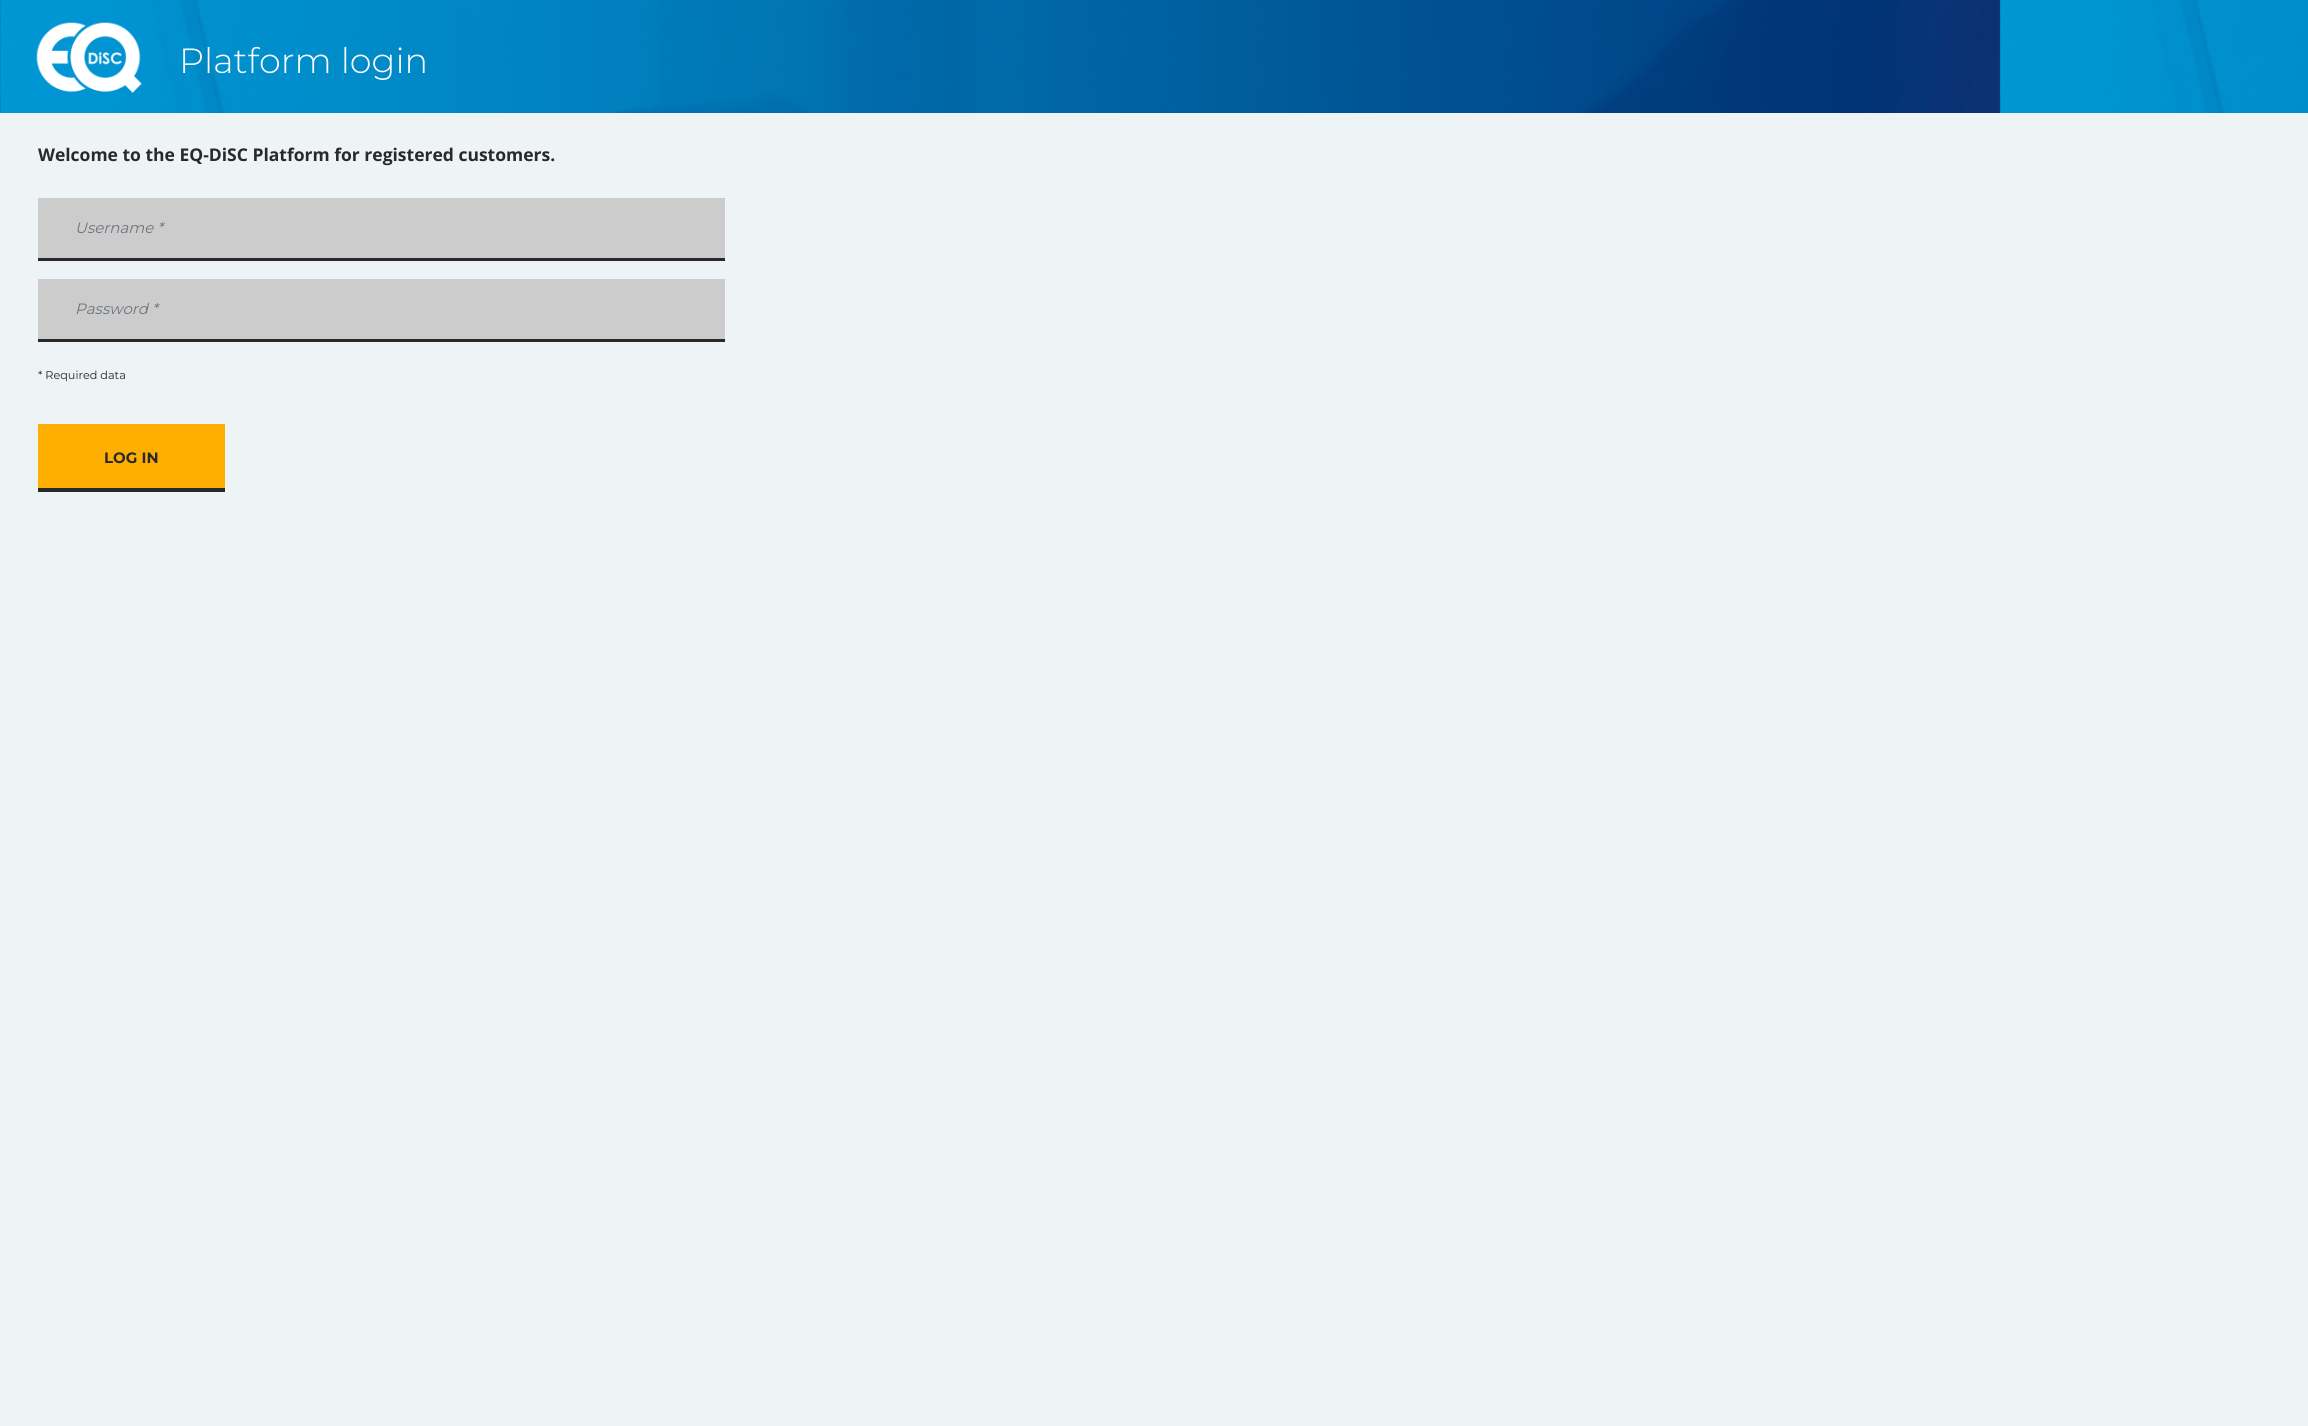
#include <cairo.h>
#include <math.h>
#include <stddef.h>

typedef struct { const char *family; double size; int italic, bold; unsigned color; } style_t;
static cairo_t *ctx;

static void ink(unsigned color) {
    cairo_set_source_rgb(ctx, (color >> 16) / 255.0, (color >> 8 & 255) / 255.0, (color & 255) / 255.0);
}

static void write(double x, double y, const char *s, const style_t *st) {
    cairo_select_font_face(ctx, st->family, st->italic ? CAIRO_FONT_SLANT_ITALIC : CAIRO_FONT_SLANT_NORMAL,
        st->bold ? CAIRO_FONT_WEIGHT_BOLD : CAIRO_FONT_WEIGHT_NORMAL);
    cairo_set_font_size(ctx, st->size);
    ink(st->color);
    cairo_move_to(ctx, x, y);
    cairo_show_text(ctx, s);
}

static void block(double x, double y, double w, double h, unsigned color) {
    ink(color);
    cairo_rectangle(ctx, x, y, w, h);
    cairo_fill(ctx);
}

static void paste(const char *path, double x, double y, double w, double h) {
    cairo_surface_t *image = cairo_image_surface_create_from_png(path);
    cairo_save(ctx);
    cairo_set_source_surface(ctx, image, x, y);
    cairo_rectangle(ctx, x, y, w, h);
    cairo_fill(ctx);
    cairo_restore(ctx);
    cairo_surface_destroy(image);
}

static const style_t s1 = {"Montserrat Light", 35, 0, 0, 0xffffff};
static const style_t s2 = {"Open Sans", 17.5, 0, 1, 0x292929};
static const style_t s3 = {"Montserrat", 15, 1, 0, 0x6c757d};
static const style_t s4 = {"Montserrat", 11.25, 0, 0, 0x212529};
static const style_t s5 = {"Montserrat", 15, 0, 1, 0x292929};

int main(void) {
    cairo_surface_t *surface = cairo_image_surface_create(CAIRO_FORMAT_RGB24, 2308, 1426);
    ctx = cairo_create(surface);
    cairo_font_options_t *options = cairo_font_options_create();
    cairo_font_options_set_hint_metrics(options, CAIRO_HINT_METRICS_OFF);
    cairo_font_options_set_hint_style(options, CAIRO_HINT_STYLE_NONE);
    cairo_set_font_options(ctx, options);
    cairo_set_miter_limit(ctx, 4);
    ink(0xeef3f6);
    cairo_paint(ctx);
    paste("pic1.png", 0, 0, 2308, 113);
    paste("pic2.png", 36, 22, 106, 71);
    write(179, 73, "Platform login", &s1);
    write(38, 161, "Welcome to the EQ-DiSC Platform for registered customers.", &s2);
    block(38, 198, 687, 60, 0xcccccc);
    block(38, 258, 687, 3, 0x292929);
    write(75, 233, "Username *", &s3);
    block(38, 279, 687, 60, 0xcccccc);
    block(38, 339, 687, 3, 0x292929);
    write(75, 314, "Password *", &s3);
    write(38, 379, "* Required data", &s4);
    block(38, 424, 187, 64, 0xffaf02);
    block(38, 488, 187, 4, 0x292929);
    write(104, 463, "LOG IN", &s5);
    cairo_surface_write_to_png(surface, "screenshot.png");
    cairo_font_options_destroy(options);
    cairo_destroy(ctx);
    cairo_surface_destroy(surface);
    return 0;
}
